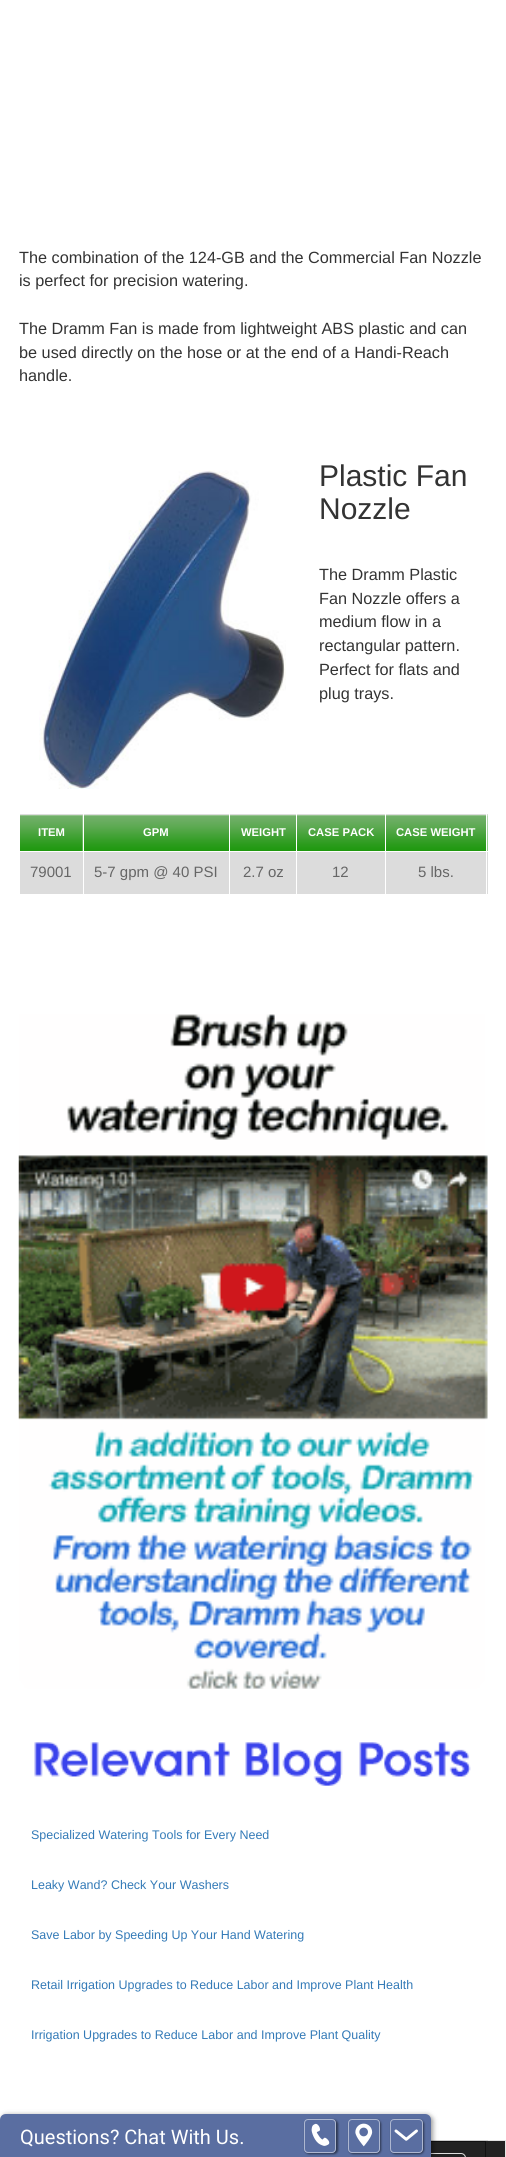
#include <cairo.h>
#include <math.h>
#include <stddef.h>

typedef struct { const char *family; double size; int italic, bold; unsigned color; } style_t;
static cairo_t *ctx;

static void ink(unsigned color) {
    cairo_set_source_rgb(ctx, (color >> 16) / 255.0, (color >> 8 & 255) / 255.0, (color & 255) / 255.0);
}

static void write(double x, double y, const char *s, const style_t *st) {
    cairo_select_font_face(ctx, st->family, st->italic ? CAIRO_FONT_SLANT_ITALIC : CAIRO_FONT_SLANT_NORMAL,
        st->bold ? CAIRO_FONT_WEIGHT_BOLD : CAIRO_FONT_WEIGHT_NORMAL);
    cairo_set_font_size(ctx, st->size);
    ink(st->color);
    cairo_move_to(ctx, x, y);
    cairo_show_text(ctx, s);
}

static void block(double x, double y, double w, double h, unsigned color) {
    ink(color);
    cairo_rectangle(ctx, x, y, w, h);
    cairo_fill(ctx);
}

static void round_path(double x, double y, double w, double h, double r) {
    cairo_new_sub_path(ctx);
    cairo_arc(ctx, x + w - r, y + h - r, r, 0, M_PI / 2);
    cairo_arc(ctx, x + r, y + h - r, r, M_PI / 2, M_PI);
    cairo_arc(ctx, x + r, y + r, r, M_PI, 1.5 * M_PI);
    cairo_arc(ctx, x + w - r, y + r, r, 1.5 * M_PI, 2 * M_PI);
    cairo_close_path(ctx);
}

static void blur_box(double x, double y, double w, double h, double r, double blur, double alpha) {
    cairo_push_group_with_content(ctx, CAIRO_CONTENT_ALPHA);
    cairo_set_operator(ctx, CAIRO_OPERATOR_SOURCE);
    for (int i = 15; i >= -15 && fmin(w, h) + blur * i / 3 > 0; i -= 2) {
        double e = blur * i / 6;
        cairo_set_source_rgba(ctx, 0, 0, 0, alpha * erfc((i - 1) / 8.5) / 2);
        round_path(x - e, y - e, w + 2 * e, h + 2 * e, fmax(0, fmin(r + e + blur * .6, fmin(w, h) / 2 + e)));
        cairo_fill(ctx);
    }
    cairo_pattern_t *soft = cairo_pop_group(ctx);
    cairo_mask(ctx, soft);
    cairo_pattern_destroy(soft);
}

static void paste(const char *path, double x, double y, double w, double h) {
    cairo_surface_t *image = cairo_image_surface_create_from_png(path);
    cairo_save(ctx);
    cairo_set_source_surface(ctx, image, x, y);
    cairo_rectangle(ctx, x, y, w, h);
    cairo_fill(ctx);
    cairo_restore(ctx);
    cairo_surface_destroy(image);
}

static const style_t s1 = {"Liberation Sans", 16.25, 0, 0, 0x333333};
static const style_t s2 = {"Liberation Sans", 30, 0, 0, 0x333333};
static const style_t s3 = {"Liberation Sans", 11.25, 0, 1, 0xffffff};
static const style_t s4 = {"Liberation Sans", 15, 0, 0, 0x666666};
static const style_t s5 = {"Liberation Sans", 12.5, 0, 0, 0x337ab7};
static const style_t s6 = {"Roboto", 20, 0, 0, 0xffffff};

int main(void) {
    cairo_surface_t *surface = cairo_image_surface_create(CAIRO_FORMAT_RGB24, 506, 2157);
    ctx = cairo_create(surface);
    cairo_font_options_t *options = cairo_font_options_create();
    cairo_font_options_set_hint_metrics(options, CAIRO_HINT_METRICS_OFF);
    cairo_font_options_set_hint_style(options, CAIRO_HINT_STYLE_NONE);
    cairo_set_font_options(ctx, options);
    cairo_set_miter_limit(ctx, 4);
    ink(0xe3e3e3);
    cairo_paint(ctx);
    block(0, 0, 506, 2140, 0xffffff);
    write(19, 263, "The combination of the 124-GB and the Commercial Fan Nozzle", &s1);
    write(19, 286, "is perfect for precision watering.", &s1);
    write(19, 334, "The Dramm Fan is made from lightweight ABS plastic and can", &s1);
    write(19, 358, "be used directly on the hose or at the end of a Handi-Reach", &s1);
    write(19, 381, "handle.", &s1);
    paste("pic1.png", 39, 470, 247, 319);
    write(319, 486, "Plastic Fan", &s2);
    write(319, 519, "Nozzle", &s2);
    write(319, 580, "The Dramm Plastic", &s1);
    write(319, 604, "Fan Nozzle offers a", &s1);
    write(319, 627, "medium flow in a", &s1);
    write(319, 651, "rectangular pattern.", &s1);
    write(319, 675, "Perfect for flats and", &s1);
    write(319, 699, "plug trays.", &s1);
    paste("pic2.png", 20, 815, 63, 36);
    paste("pic3.png", 82, 815, 147, 36);
    block(19, 814, 469, 1, 0xdddddd);
    block(83, 814, 1, 39, 0xffffff);
    block(19, 814, 1, 1, 0xffffff);
    write(38, 836, "ITEM", &s3);
    block(229, 814, 1, 1, 0xffffff);
    write(143, 836, "GPM", &s3);
    paste("pic4.png", 230, 815, 66, 36);
    block(296, 814, 1, 1, 0xffffff);
    write(241, 836, "WEIGHT", &s3);
    paste("pic5.png", 297, 815, 88, 36);
    block(385, 814, 1, 1, 0xffffff);
    write(308, 836, "CASE PACK", &s3);
    paste("pic6.png", 386, 815, 102, 36);
    block(386, 852, 102, 42, 0xdcdcdc);
    block(486, 851, 1, 44, 0xffffff);
    block(486, 814, 1, 39, 0xffffff);
    write(396, 836, "CASE WEIGHT", &s3);
    block(20, 852, 63, 42, 0xdcdcdc);
    write(30, 877, "79001", &s4);
    block(84, 852, 145, 42, 0xdcdcdc);
    write(94, 877, "5-7 gpm @ 40 PSI", &s4);
    block(230, 852, 66, 42, 0xdcdcdc);
    write(243, 877, "2.7 oz", &s4);
    block(297, 852, 88, 42, 0xdcdcdc);
    write(332, 877, "12", &s4);
    write(418, 877, "5 lbs.", &s4);
    paste("pic7.png", 18, 1014, 470, 675);
    paste("pic8.png", 34, 1742, 437, 44);
    write(31, 1839, "Specialized Watering Tools for Every Need", &s5);
    write(31, 1889, "Leaky Wand? Check Your Washers", &s5);
    write(31, 1939, "Save Labor by Speeding Up Your Hand Watering", &s5);
    write(31, 1989, "Retail Irrigation Upgrades to Reduce Labor and Improve Plant Health", &s5);
    write(31, 2039, "Irrigation Upgrades to Reduce Labor and Improve Plant Quality", &s5);
    block(431, 2140, 57, 1, 0xcccccc);
    block(431, 2141, 74, 16, 0x222222);
    cairo_rectangle(ctx, 20.5, 2141.5, 465, 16);
    ink(0x111111);
    cairo_set_line_width(ctx, 1);
    cairo_stroke(ctx);
    round_path(411.5, 2153.5, 54, 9, 4.5);
    ink(0xdddddd);
    cairo_stroke(ctx);
    ink(0x000000);
    blur_box(1, 2115, 432, 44, 6, 2.5, 0.4);
    ink(0x5a6ea1);
    cairo_new_path(ctx);
    cairo_move_to(ctx, 6, 2114);
    cairo_line_to(ctx, 425, 2114);
    cairo_curve_to(ctx, 428.5, 2114, 431, 2116.5, 431, 2120);
    cairo_line_to(ctx, 431, 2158);
    cairo_line_to(ctx, 0, 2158);
    cairo_line_to(ctx, 0, 2120);
    cairo_curve_to(ctx, 0, 2116.5, 2.5, 2114, 6, 2114);
    cairo_close_path(ctx);
    cairo_fill(ctx);
    write(20, 2144, "Questions? Chat With Us.", &s6);
    cairo_save(ctx);
    cairo_set_fill_rule(ctx, CAIRO_FILL_RULE_EVEN_ODD);
    cairo_new_path(ctx);
    cairo_move_to(ctx, 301, 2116);
    cairo_line_to(ctx, 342, 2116);
    cairo_line_to(ctx, 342, 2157);
    cairo_line_to(ctx, 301, 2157);
    cairo_close_path(ctx);
    cairo_move_to(ctx, 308, 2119);
    cairo_line_to(ctx, 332, 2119);
    cairo_curve_to(ctx, 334, 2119, 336, 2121, 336, 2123);
    cairo_line_to(ctx, 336, 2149);
    cairo_curve_to(ctx, 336, 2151, 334, 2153, 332, 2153);
    cairo_line_to(ctx, 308, 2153);
    cairo_curve_to(ctx, 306, 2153, 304, 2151, 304, 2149);
    cairo_line_to(ctx, 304, 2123);
    cairo_curve_to(ctx, 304, 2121, 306, 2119, 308, 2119);
    cairo_close_path(ctx);
    cairo_clip(ctx);
    ink(0x000000);
    blur_box(305, 2120, 33, 34, 4, 1, 0.5);
    cairo_restore(ctx);
    round_path(304.5, 2119.5, 31, 33, 3.5);
    cairo_set_source_rgba(ctx, 1, 1, 1, 0.5);
    cairo_stroke(ctx);
    paste("pic9.png", 311, 2123, 19, 23);
    cairo_save(ctx);
    cairo_set_fill_rule(ctx, CAIRO_FILL_RULE_EVEN_ODD);
    cairo_new_path(ctx);
    cairo_move_to(ctx, 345, 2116);
    cairo_line_to(ctx, 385, 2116);
    cairo_line_to(ctx, 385, 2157);
    cairo_line_to(ctx, 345, 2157);
    cairo_close_path(ctx);
    cairo_move_to(ctx, 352, 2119);
    cairo_line_to(ctx, 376, 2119);
    cairo_curve_to(ctx, 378, 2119, 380, 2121, 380, 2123);
    cairo_line_to(ctx, 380, 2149);
    cairo_curve_to(ctx, 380, 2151, 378, 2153, 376, 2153);
    cairo_line_to(ctx, 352, 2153);
    cairo_curve_to(ctx, 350, 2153, 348, 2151, 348, 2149);
    cairo_line_to(ctx, 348, 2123);
    cairo_curve_to(ctx, 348, 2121, 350, 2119, 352, 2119);
    cairo_close_path(ctx);
    cairo_clip(ctx);
    ink(0x000000);
    blur_box(349, 2120, 32, 34, 4, 1, 0.5);
    cairo_restore(ctx);
    round_path(348.5, 2119.5, 31, 33, 3.5);
    cairo_stroke(ctx);
    paste("pic10.png", 355, 2123, 18, 24);
    cairo_save(ctx);
    cairo_set_fill_rule(ctx, CAIRO_FILL_RULE_EVEN_ODD);
    cairo_new_path(ctx);
    cairo_move_to(ctx, 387, 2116);
    cairo_line_to(ctx, 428, 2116);
    cairo_line_to(ctx, 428, 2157);
    cairo_line_to(ctx, 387, 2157);
    cairo_close_path(ctx);
    cairo_move_to(ctx, 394, 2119);
    cairo_line_to(ctx, 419, 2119);
    cairo_curve_to(ctx, 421, 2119, 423, 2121, 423, 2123);
    cairo_line_to(ctx, 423, 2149);
    cairo_curve_to(ctx, 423, 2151, 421, 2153, 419, 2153);
    cairo_line_to(ctx, 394, 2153);
    cairo_curve_to(ctx, 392, 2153, 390, 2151, 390, 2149);
    cairo_line_to(ctx, 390, 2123);
    cairo_curve_to(ctx, 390, 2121, 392, 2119, 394, 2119);
    cairo_close_path(ctx);
    cairo_clip(ctx);
    ink(0x000000);
    blur_box(391, 2120, 33, 34, 4, 1, 0.5);
    cairo_restore(ctx);
    round_path(390.5, 2119.5, 32, 33, 3.5);
    cairo_stroke(ctx);
    paste("pic11.png", 394, 2129, 24, 12);
    cairo_surface_write_to_png(surface, "screenshot.png");
    cairo_font_options_destroy(options);
    cairo_destroy(ctx);
    cairo_surface_destroy(surface);
    return 0;
}
